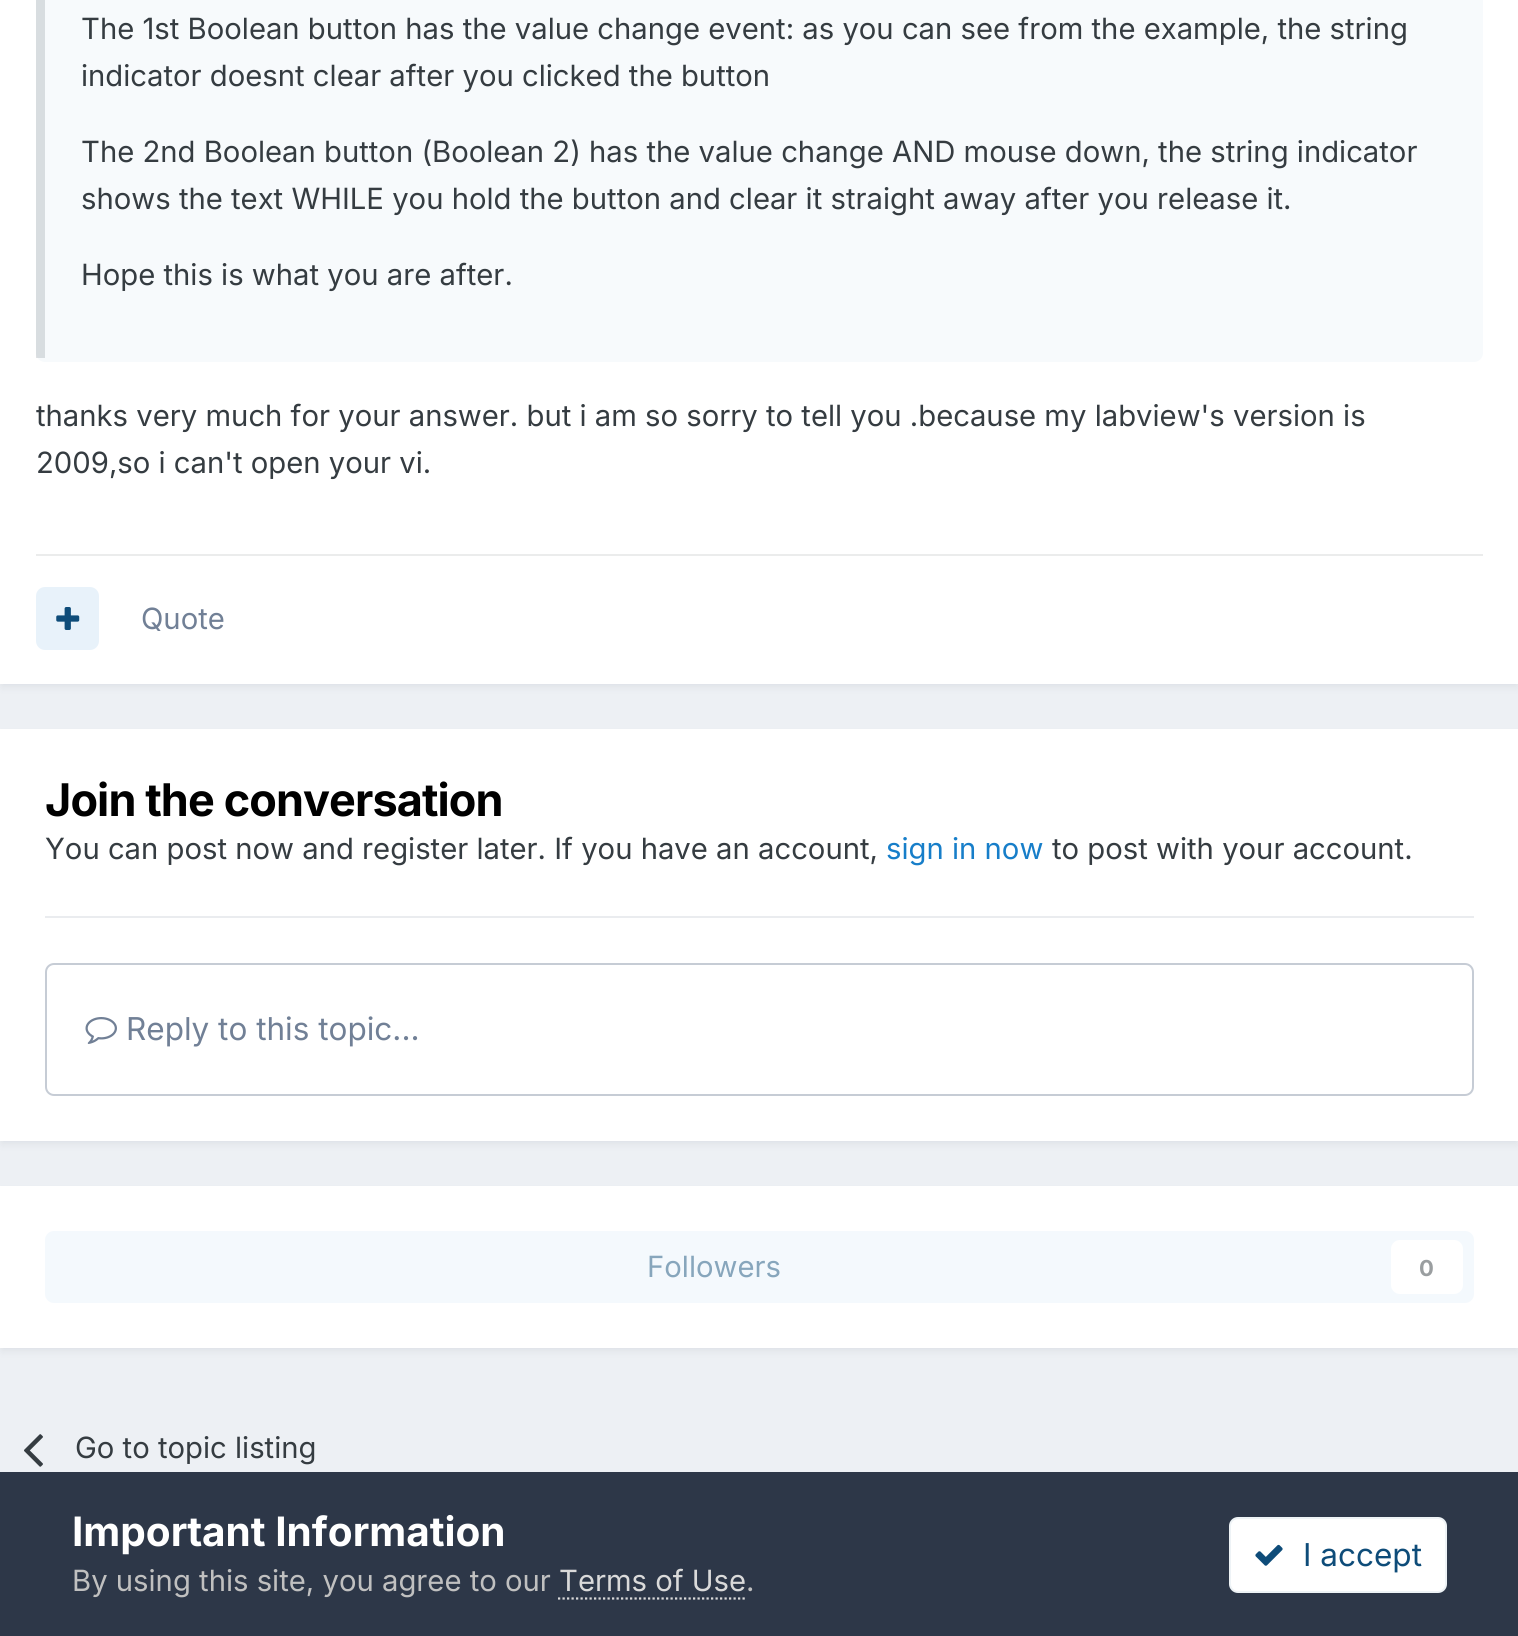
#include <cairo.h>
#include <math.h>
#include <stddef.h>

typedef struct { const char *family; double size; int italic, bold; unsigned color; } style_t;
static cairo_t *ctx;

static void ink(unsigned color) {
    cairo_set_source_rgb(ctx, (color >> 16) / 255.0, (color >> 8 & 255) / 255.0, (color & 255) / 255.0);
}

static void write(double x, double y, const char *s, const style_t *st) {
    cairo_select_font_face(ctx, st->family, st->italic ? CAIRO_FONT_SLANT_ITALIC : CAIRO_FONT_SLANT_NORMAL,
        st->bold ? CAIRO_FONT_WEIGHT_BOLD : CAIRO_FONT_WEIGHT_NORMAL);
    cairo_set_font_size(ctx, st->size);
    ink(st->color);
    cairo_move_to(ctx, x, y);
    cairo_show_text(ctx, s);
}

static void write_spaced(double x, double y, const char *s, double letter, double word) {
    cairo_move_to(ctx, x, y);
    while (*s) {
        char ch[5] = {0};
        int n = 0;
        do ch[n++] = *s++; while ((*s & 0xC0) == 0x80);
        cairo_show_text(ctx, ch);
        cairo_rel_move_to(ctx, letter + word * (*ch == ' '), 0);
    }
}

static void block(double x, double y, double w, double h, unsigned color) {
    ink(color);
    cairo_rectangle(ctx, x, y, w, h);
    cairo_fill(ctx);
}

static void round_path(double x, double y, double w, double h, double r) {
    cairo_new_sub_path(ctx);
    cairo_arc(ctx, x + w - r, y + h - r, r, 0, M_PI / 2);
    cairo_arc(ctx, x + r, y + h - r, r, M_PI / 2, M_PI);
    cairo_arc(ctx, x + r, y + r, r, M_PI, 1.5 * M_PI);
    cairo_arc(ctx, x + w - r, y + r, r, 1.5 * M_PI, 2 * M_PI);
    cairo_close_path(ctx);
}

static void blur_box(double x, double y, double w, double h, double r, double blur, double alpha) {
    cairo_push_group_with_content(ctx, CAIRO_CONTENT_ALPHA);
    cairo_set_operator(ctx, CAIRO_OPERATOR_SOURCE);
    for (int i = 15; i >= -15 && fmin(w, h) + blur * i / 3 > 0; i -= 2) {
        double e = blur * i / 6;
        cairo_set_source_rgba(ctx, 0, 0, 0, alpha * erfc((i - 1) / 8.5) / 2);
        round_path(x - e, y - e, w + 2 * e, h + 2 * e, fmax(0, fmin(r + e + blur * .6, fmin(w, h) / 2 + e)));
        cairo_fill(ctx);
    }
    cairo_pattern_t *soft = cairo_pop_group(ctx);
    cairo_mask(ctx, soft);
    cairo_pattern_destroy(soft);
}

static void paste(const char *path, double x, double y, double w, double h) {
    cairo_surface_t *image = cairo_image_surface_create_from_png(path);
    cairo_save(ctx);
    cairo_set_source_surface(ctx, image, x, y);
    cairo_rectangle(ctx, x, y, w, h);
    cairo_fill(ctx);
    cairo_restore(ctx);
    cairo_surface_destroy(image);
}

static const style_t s1 = {"Inter", 29.25, 0, 0, 0x353c41};
static const style_t s2 = {"Inter", 29.25, 0, 0, 0x718096};
static const style_t s3 = {"Inter", 29.25, 0, 0, 0x177ec9};
static const style_t s4 = {"Inter", 31.5, 0, 0, 0x718096};
static const style_t s5 = {"Inter", 29.25, 0, 0, 0x87a6bc};
static const style_t s6 = {"Inter", 22, 0, 1, 0x9a9ea0};
static const style_t s7 = {"Inter", 40.5, 0, 1, 0xffffff};
static const style_t s8 = {"Inter", 29.25, 0, 0, 0xc0c0c0};
static const style_t s9 = {"Inter", 29.25, 0, 0, 0xdadada};
static const style_t s10 = {"Inter", 31.5, 0, 0, 0x0e4c79};

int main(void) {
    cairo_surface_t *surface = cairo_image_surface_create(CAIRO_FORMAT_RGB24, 1518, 1636);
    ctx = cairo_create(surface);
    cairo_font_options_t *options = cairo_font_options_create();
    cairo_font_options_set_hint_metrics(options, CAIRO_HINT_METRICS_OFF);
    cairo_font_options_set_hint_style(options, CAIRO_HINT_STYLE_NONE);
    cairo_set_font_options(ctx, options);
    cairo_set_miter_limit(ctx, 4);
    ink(0xedf0f4);
    cairo_paint(ctx);
    ink(0x2d3748);
    blur_box(2, -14, 1515, 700, 0, 4.5, 0.1);
    block(0, 0, 1518, 684, 0xffffff);
    ink(0xf7fafc);
    round_path(36, -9, 1447, 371, 9);
    cairo_fill(ctx);
    cairo_set_source_rgba(ctx, 0.176, 0.216, 0.282, 0.15);
    cairo_rectangle(ctx, 36, 0, 9, 358);
    cairo_fill(ctx);
    write(81, 39, "The 1st Boolean button has the value change event: as you can see from the example, the string", &s1);
    write(81, 86, "indicator doesnt clear after you clicked the button", &s1);
    write(81, 162, "The 2nd Boolean button (Boolean 2) has the value change AND mouse down, the string indicator", &s1);
    write(81, 209, "shows the text WHILE you hold the button and clear it straight away after you release it.", &s1);
    write(81, 285, "Hope this is what you are after.", &s1);
    write(36, 426, "thanks very much for your answer. but i am so sorry to tell you .because my labview's version is", &s1);
    write(36, 473, "2009,so i can't open your vi.", &s1);
    block(36, 554, 1447, 2, 0xebecec);
    ink(0xe8f2fa);
    round_path(36, 587, 63, 63, 9);
    cairo_fill(ctx);
    paste("pic1.png", 56, 607, 24, 23);
    write(141, 629, "Quote", &s2);
    ink(0x2d3748);
    blur_box(2, 736, 1515, 407, 0, 4.5, 0.1);
    block(0, 729, 1518, 412, 0xffffff);
    block(45, 916, 1429, 2, 0xeaecef);
    cairo_select_font_face(ctx, "Inter", CAIRO_FONT_SLANT_NORMAL, CAIRO_FONT_WEIGHT_BOLD);
    cairo_set_font_size(ctx, 45);
    ink(0x000000);
    write_spaced(45, 816, "Join the conversation", -0.9, 0);
    write(45, 859, "You can post now and register later. If you have an account,", &s1);
    write(886, 859, "sign in now", &s3);
    write(1052, 859, "to post with your account.", &s1);
    round_path(46, 964, 1427, 131, 8);
    ink(0xc6ccd5);
    cairo_stroke(ctx);
    paste("pic2.png", 85, 1017, 32, 27);
    write(126, 1040, "Reply to this topic...", &s4);
    ink(0x2d3748);
    blur_box(2, 1193, 1515, 157, 0, 4.5, 0.1);
    block(0, 1186, 1518, 162, 0xffffff);
    ink(0xf4f9fd);
    round_path(45, 1231, 1429, 72, 9);
    cairo_fill(ctx);
    write(647, 1277, "Followers", &s5);
    ink(0xffffff);
    round_path(1391, 1240, 72, 54, 9);
    cairo_fill(ctx);
    write(1419, 1276, "0", &s6);
    paste("pic3.png", 24, 1434, 19, 33);
    write(75, 1458, "Go to topic listing", &s1);
    block(0, 1472, 1518, 164, 0x2d3748);
    write(72, 1546, "Important Information", &s7);
    write(72, 1591, "By using this site, you agree to our", &s8);
    write(559, 1591, "Terms of Use", &s9);
    cairo_new_path(ctx);
    cairo_move_to(ctx, 558, 1598.5);
    cairo_line_to(ctx, 747, 1598.5);
    cairo_set_line_width(ctx, 2.2);
    cairo_set_dash(ctx, (double[]){2.25, 2.25}, 2, 0);
    cairo_stroke(ctx);
    write(746, 1591, ".", &s8);
    ink(0xffffff);
    round_path(1229, 1517, 218, 76, 9);
    cairo_fill(ctx);
    round_path(1230, 1518, 216, 74, 8);
    cairo_set_source_rgba(ctx, 0.055, 0.298, 0.475, 0.07);
    cairo_set_line_width(ctx, 2);
    cairo_set_dash(ctx, NULL, 0, 0);
    cairo_stroke(ctx);
    paste("pic4.png", 1255, 1544, 28, 22);
    write(1303, 1566, "I accept", &s10);
    cairo_surface_write_to_png(surface, "screenshot.png");
    cairo_font_options_destroy(options);
    cairo_destroy(ctx);
    cairo_surface_destroy(surface);
    return 0;
}
